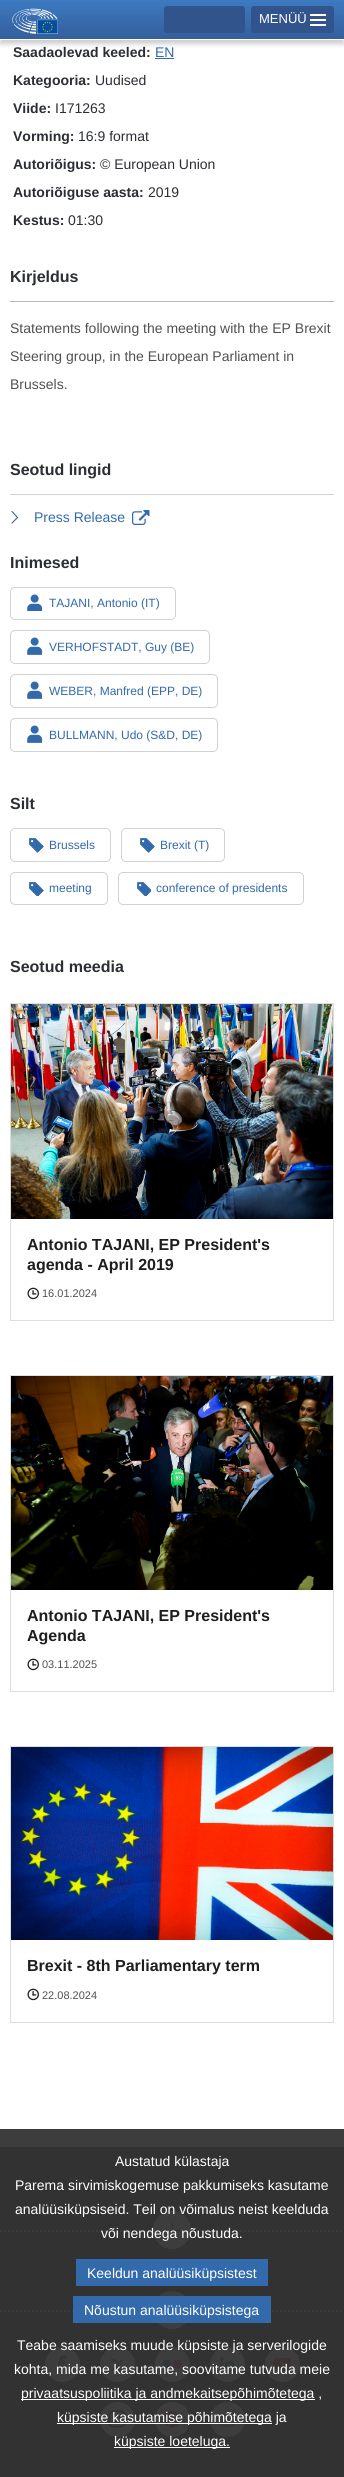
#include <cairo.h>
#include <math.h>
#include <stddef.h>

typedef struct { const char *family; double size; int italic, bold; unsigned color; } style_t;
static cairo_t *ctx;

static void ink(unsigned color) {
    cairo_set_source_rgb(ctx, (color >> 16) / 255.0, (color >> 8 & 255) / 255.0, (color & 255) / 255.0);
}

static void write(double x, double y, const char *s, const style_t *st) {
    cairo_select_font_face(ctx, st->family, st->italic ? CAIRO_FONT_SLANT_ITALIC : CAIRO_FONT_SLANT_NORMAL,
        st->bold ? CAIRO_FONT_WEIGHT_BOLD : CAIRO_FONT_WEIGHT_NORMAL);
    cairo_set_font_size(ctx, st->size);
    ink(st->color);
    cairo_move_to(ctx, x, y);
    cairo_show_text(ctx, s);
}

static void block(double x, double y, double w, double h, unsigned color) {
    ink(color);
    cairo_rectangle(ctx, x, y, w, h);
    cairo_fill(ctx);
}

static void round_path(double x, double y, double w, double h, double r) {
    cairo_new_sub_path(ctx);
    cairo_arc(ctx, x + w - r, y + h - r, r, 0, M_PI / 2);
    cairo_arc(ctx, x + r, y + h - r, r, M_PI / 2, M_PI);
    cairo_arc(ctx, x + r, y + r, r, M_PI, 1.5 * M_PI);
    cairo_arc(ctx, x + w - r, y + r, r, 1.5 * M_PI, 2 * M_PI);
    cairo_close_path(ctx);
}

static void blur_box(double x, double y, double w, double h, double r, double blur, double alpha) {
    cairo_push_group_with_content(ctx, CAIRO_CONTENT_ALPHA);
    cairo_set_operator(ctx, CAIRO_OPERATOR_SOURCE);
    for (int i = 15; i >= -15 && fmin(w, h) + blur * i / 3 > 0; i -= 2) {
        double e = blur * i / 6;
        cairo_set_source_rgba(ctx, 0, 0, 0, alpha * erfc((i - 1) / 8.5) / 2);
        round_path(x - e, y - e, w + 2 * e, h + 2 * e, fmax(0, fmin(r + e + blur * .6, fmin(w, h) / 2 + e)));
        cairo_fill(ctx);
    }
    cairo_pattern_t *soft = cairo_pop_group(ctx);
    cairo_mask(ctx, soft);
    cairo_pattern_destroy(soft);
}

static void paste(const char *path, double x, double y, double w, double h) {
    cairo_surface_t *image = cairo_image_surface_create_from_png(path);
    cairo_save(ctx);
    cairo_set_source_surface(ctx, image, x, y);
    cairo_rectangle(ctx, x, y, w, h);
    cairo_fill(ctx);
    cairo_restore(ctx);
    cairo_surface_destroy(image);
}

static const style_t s1 = {"Liberation Sans", 13, 0, 0, 0xffffff};
static const style_t s2 = {"Liberation Sans", 14, 0, 1, 0x2b2e34};
static const style_t s3 = {"Liberation Sans", 14, 0, 0, 0x326aab};
static const style_t s4 = {"Liberation Sans", 14, 0, 0, 0x2b2e34};
static const style_t s5 = {"Liberation Sans", 16, 0, 1, 0x2b2e34};
static const style_t s6 = {"Liberation Sans", 14, 0, 0, 0x505154};
static const style_t s7 = {"Liberation Sans", 12, 0, 0, 0x326aab};
static const style_t s8 = {"Liberation Sans", 16, 0, 1, 0x1e1e1f};
static const style_t s9 = {"Liberation Sans", 11, 0, 0, 0x505154};
static const style_t s10 = {"Liberation Sans", 14, 0, 0, 0xffffff};

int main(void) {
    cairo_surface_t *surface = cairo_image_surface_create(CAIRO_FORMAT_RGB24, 344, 2477);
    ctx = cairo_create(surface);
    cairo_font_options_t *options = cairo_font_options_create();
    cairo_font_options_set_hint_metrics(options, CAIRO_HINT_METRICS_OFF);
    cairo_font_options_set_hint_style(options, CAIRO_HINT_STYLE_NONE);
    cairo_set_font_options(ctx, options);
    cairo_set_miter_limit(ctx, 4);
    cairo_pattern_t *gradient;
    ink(0xffffff);
    cairo_paint(ctx);
    block(0, 2129, 344, 18, 0x3d3d3d);
    ink(0x000000);
    blur_box(0, 4, 344, 40, 0, 2.5, 0.2);
    gradient = cairo_pattern_create_linear(172, 0, 172, 39);
    cairo_pattern_add_color_stop_rgba(gradient, 0, 0.239, 0.478, 0.757, 1);
    cairo_pattern_add_color_stop_rgba(gradient, 1, 0.204, 0.369, 0.612, 1);
    cairo_set_source(ctx, gradient);
    cairo_pattern_destroy(gradient);
    cairo_rectangle(ctx, 0, 0, 344, 39);
    cairo_fill(ctx);
    block(0, 39, 344, 1, 0xffffff);
    paste("pic1.png", 10, 8, 48, 26);
    ink(0x32548d);
    round_path(164, 6, 81, 27, 3);
    cairo_fill(ctx);
    round_path(251, 6, 83, 27, 3);
    cairo_fill(ctx);
    write(259, 23, "MENÜÜ", &s1);
    block(310, 14, 16, 2, 0xffffff);
    block(310, 19, 16, 2, 0xffffff);
    block(310, 24, 16, 2, 0xffffff);
    write(13, 57, "Saadaolevad keeled:", &s2);
    write(155, 57, "EN", &s3);
    block(155, 58, 19, 1, 0x326aab);
    write(13, 85, "Kategooria:", &s2);
    write(95, 85, "Uudised", &s4);
    write(13, 113, "Viide:", &s2);
    write(55, 113, "I171263", &s4);
    write(13, 141, "Vorming:", &s2);
    write(78, 141, "16:9 format", &s4);
    write(13, 169, "Autoriõigus:", &s2);
    write(100, 169, "© European Union", &s4);
    write(13, 197, "Autoriõiguse aasta:", &s2);
    write(148, 197, "2019", &s4);
    write(13, 225, "Kestus:", &s2);
    write(68, 225, "01:30", &s4);
    block(10, 301, 324, 1, 0xb5b9ba);
    write(10, 282, "Kirjeldus", &s5);
    write(10, 333, "Statements following the meeting with the EP Brexit", &s6);
    write(10, 361, "Steering group, in the European Parliament in", &s6);
    write(10, 389, "Brussels.", &s6);
    block(10, 494, 324, 1, 0xd1d3d4);
    write(10, 475, "Seotud lingid", &s5);
    cairo_new_path(ctx);
    cairo_move_to(ctx, 12, 523);
    cairo_line_to(ctx, 17.5, 517.5);
    cairo_line_to(ctx, 12, 511.5);
    ink(0x3268a9);
    cairo_set_line_width(ctx, 1.1);
    cairo_set_line_cap(ctx, CAIRO_LINE_CAP_ROUND);
    cairo_set_line_join(ctx, CAIRO_LINE_JOIN_ROUND);
    cairo_stroke(ctx);
    write(34, 522, "Press Release", &s3);
    paste("pic2.png", 132, 510, 18, 15);
    write(10, 568, "Inimesed", &s5);
    round_path(10.5, 587.5, 165, 32, 4.5);
    ink(0xd1d2d3);
    cairo_set_line_width(ctx, 1);
    cairo_set_line_cap(ctx, CAIRO_LINE_CAP_BUTT);
    cairo_set_line_join(ctx, CAIRO_LINE_JOIN_MITER);
    cairo_stroke(ctx);
    paste("pic3.png", 27, 594, 16, 17);
    write(49, 607, "TAJANI, Antonio (IT)", &s7);
    round_path(10.5, 630.5, 199, 33, 4.5);
    ink(0xd1d2d3);
    cairo_stroke(ctx);
    paste("pic4.png", 27, 637, 16, 18);
    write(49, 651, "VERHOFSTADT, Guy (BE)", &s7);
    round_path(10.5, 674.5, 207, 33, 4.5);
    ink(0xd1d2d3);
    cairo_stroke(ctx);
    paste("pic4.png", 27, 681, 16, 18);
    write(49, 695, "WEBER, Manfred (EPP, DE)", &s7);
    round_path(10.5, 718.5, 207, 33, 4.5);
    ink(0xd1d2d3);
    cairo_stroke(ctx);
    paste("pic4.png", 27, 725, 16, 18);
    write(49, 739, "BULLMANN, Udo (S&D, DE)", &s7);
    write(10, 809, "Silt", &s5);
    round_path(10.5, 828.5, 100, 33, 4.5);
    ink(0xd1d2d3);
    cairo_stroke(ctx);
    paste("pic5.png", 29, 838, 15, 15);
    write(49, 849, "Brussels", &s7);
    round_path(121.5, 828.5, 103, 33, 4.5);
    ink(0xd1d2d3);
    cairo_stroke(ctx);
    paste("pic5.png", 140, 838, 15, 15);
    write(160, 849, "Brexit (T)", &s7);
    round_path(10.5, 872.5, 97, 32, 4.5);
    ink(0xd1d2d3);
    cairo_stroke(ctx);
    paste("pic6.png", 29, 882, 15, 14);
    write(49, 892, "meeting", &s7);
    round_path(118.5, 872.5, 185, 32, 4.5);
    ink(0xd1d2d3);
    cairo_stroke(ctx);
    paste("pic7.png", 137, 882, 14, 14);
    write(156, 892, "conference of presidents", &s7);
    write(10, 972, "Seotud meedia", &s5);
    cairo_rectangle(ctx, 10.5, 1003.5, 323, 317);
    ink(0xdcdedf);
    cairo_stroke(ctx);
    paste("pic8.png", 11, 1004, 322, 215);
    write(27, 1250, "Antonio TAJANI, EP President's", &s8);
    write(27, 1270, "agenda - April 2019", &s8);
    paste("pic9.png", 27, 1287, 12, 13);
    write(42, 1297, "16.01.2024", &s9);
    cairo_rectangle(ctx, 10.5, 1375.5, 323, 316);
    ink(0xdcdedf);
    cairo_stroke(ctx);
    paste("pic10.png", 11, 1376, 322, 214);
    write(27, 1621, "Antonio TAJANI, EP President's", &s8);
    write(27, 1641, "Agenda", &s8);
    paste("pic9.png", 27, 1658, 12, 13);
    write(42, 1668, "03.11.2025", &s9);
    cairo_rectangle(ctx, 10.5, 1746.5, 323, 276);
    ink(0xdcdedf);
    cairo_stroke(ctx);
    paste("pic11.png", 11, 1747, 322, 193);
    write(27, 1971, "Brexit - 8th Parliamentary term", &s8);
    paste("pic9.png", 27, 1988, 12, 13);
    write(42, 1999, "22.08.2024", &s9);
    block(0, 2147, 344, 330, 0x323232);
    cairo_new_path(ctx);
    cairo_move_to(ctx, 0, 2231);
    cairo_line_to(ctx, 344, 2231);
    ink(0x3b3b3b);
    cairo_set_line_width(ctx, 2);
    cairo_set_dash(ctx, (double[]){2, 2}, 2, 0);
    cairo_stroke(ctx);
    ink(0x3d3d3d);
    cairo_arc(ctx, 172, 2230, 19.5, 0, 2 * M_PI);
    cairo_fill_preserve(ctx);
    ink(0x323232);
    cairo_set_line_width(ctx, 1);
    cairo_set_dash(ctx, NULL, 0, 0);
    cairo_stroke(ctx);
    block(165, 2230, 15, 1, 0x323232);
    block(172, 2223, 1, 15, 0x323232);
    cairo_new_path(ctx);
    cairo_move_to(ctx, 0, 2311);
    cairo_line_to(ctx, 344, 2311);
    ink(0x3b3b3b);
    cairo_set_line_width(ctx, 2);
    cairo_set_dash(ctx, (double[]){2, 2}, 2, 0);
    cairo_stroke(ctx);
    ink(0x3d3d3d);
    cairo_arc(ctx, 172, 2310, 19.5, 0, 2 * M_PI);
    cairo_fill_preserve(ctx);
    ink(0x323232);
    cairo_set_line_width(ctx, 1);
    cairo_set_dash(ctx, NULL, 0, 0);
    cairo_stroke(ctx);
    ink(0x3d3d3d);
    cairo_arc(ctx, 62.5, 2364.5, 17.5, 0, 2 * M_PI);
    cairo_fill(ctx);
    paste("pic12.png", 58, 2355, 8, 18);
    cairo_arc(ctx, 117.5, 2364.5, 17.5, 0, 2 * M_PI);
    cairo_fill(ctx);
    paste("pic13.png", 111, 2359, 13, 12);
    cairo_arc(ctx, 172.5, 2364.5, 17.5, 0, 2 * M_PI);
    cairo_fill(ctx);
    paste("pic14.png", 162, 2359, 20, 10);
    cairo_arc(ctx, 227.5, 2364.5, 17.5, 0, 2 * M_PI);
    cairo_fill(ctx);
    paste("pic15.png", 220, 2357, 15, 14);
    cairo_arc(ctx, 282.5, 2364.5, 17.5, 0, 2 * M_PI);
    cairo_fill(ctx);
    paste("pic16.png", 273, 2358, 19, 12);
    cairo_arc(ctx, 117.5, 2419.5, 17.5, 0, 2 * M_PI);
    cairo_fill(ctx);
    paste("pic17.png", 108, 2410, 18, 18);
    cairo_arc(ctx, 172.5, 2419.5, 17.5, 0, 2 * M_PI);
    cairo_fill(ctx);
    paste("pic18.png", 163, 2410, 17, 18);
    cairo_arc(ctx, 227.5, 2419.5, 17.5, 0, 2 * M_PI);
    cairo_fill(ctx);
    paste("pic19.png", 217, 2410, 21, 17);
    write(115, 2166, "Austatud külastaja", &s10);
    write(15, 2190, "Parema sirvimiskogemuse pakkumiseks kasutame", &s10);
    write(15, 2214, "analüüsiküpsiseid. Teil on võimalus neist keelduda", &s10);
    write(101, 2238, "või nendega nõustuda.", &s10);
    block(76, 2259, 192, 27, 0x326aab);
    write(87, 2278, "Keeldun analüüsiküpsistest", &s10);
    block(73, 2296, 198, 27, 0x326aab);
    write(84, 2315, "Nõustun analüüsiküpsistega", &s10);
    write(17, 2350, "Teabe saamiseks muude küpsiste ja serverilogide", &s10);
    write(14, 2374, "kohta, mida me kasutame, soovitame tutvuda meie", &s10);
    block(21, 2399, 294, 1, 0xffffff);
    write(21, 2398, "privaatsuspoliitika ja andmekaitsepõhimõtetega ,", &s10);
    block(57, 2423, 215, 1, 0xffffff);
    write(57, 2422, "küpsiste kasutamise põhimõtetega ja", &s10);
    block(114, 2447, 116, 1, 0xffffff);
    write(114, 2446, "küpsiste loeteluga.", &s10);
    cairo_surface_write_to_png(surface, "screenshot.png");
    cairo_font_options_destroy(options);
    cairo_destroy(ctx);
    cairo_surface_destroy(surface);
    return 0;
}
